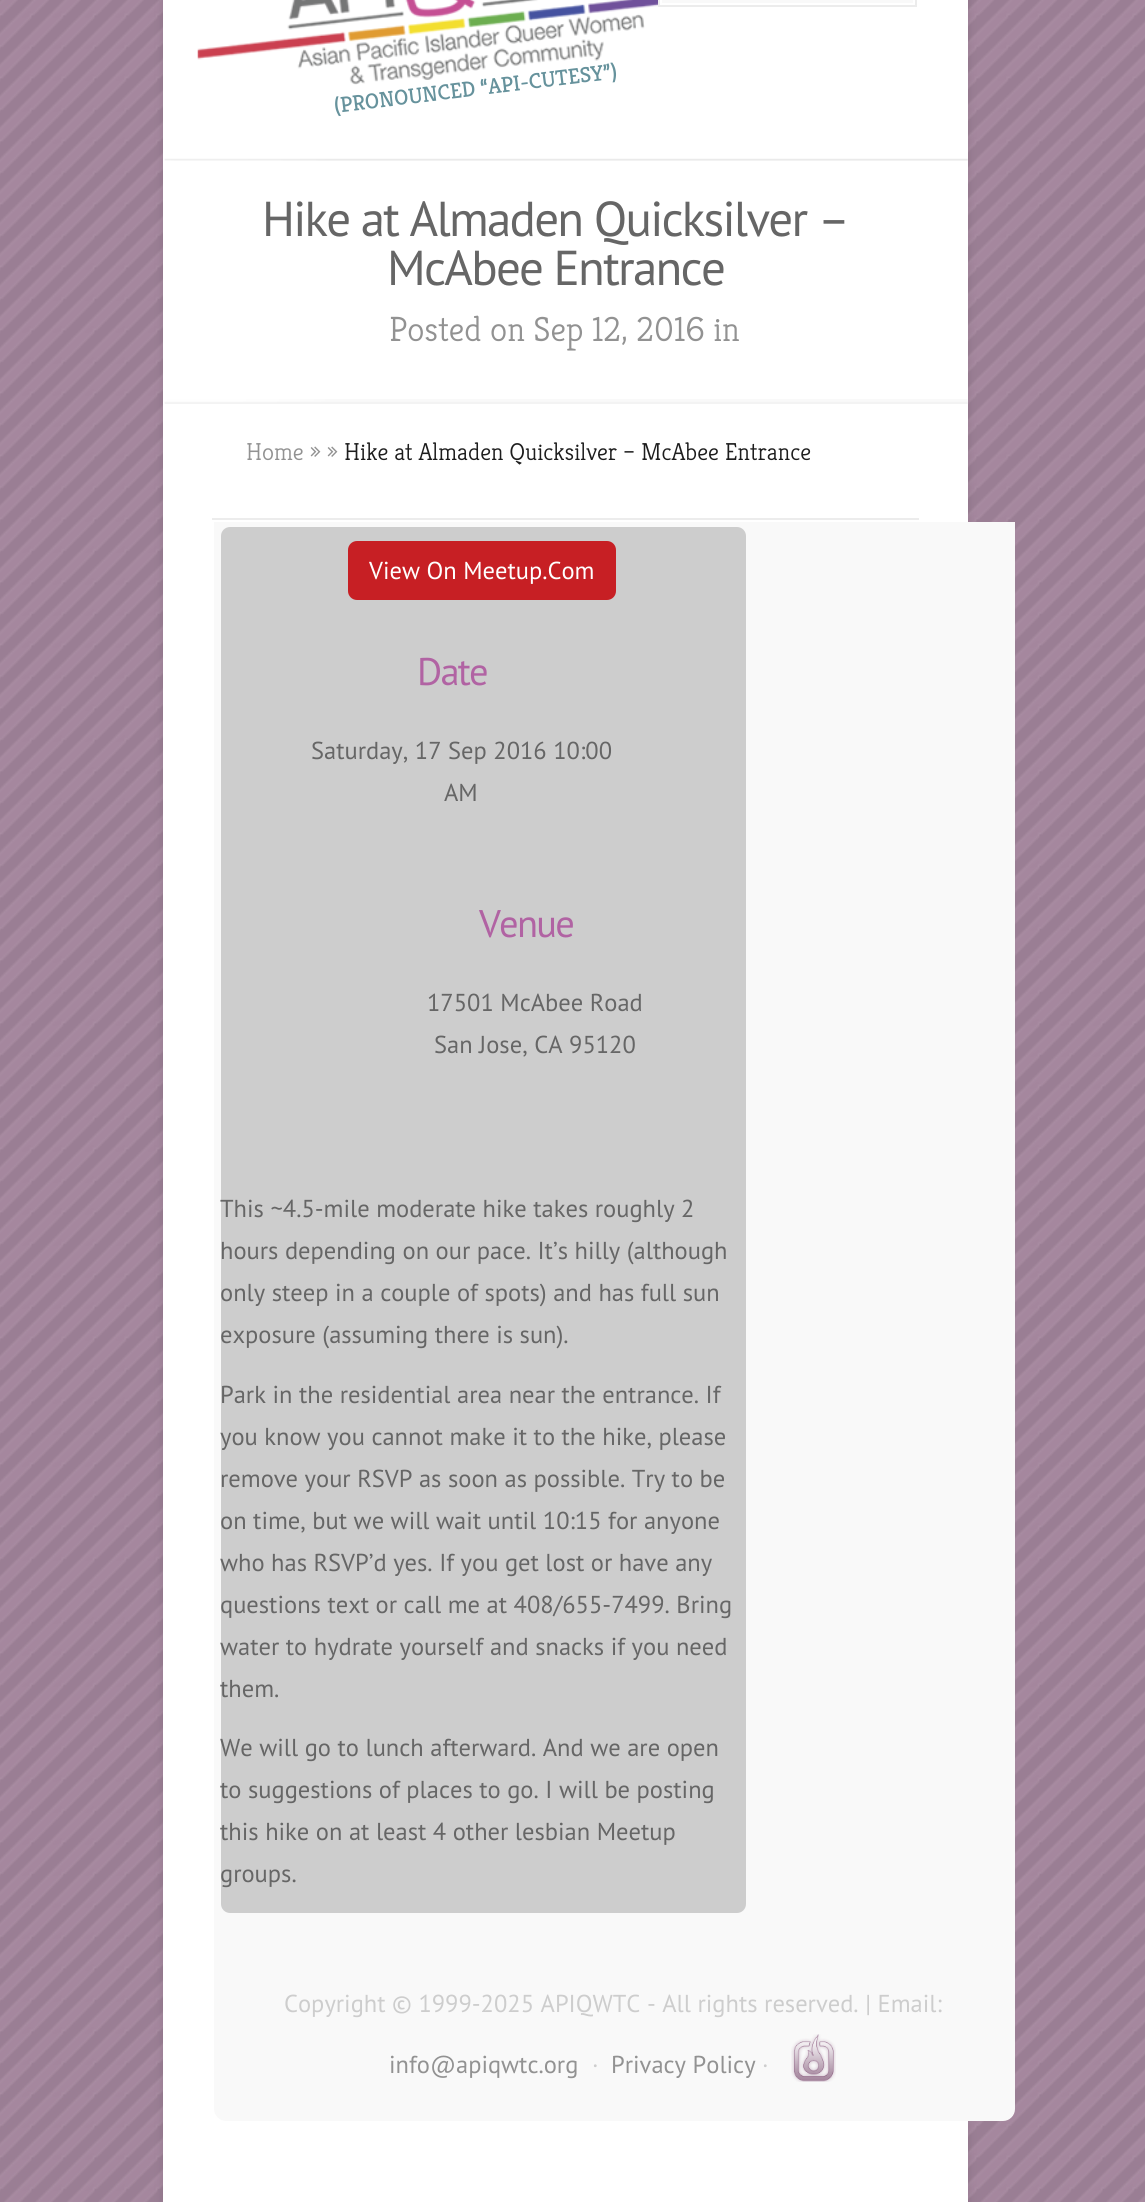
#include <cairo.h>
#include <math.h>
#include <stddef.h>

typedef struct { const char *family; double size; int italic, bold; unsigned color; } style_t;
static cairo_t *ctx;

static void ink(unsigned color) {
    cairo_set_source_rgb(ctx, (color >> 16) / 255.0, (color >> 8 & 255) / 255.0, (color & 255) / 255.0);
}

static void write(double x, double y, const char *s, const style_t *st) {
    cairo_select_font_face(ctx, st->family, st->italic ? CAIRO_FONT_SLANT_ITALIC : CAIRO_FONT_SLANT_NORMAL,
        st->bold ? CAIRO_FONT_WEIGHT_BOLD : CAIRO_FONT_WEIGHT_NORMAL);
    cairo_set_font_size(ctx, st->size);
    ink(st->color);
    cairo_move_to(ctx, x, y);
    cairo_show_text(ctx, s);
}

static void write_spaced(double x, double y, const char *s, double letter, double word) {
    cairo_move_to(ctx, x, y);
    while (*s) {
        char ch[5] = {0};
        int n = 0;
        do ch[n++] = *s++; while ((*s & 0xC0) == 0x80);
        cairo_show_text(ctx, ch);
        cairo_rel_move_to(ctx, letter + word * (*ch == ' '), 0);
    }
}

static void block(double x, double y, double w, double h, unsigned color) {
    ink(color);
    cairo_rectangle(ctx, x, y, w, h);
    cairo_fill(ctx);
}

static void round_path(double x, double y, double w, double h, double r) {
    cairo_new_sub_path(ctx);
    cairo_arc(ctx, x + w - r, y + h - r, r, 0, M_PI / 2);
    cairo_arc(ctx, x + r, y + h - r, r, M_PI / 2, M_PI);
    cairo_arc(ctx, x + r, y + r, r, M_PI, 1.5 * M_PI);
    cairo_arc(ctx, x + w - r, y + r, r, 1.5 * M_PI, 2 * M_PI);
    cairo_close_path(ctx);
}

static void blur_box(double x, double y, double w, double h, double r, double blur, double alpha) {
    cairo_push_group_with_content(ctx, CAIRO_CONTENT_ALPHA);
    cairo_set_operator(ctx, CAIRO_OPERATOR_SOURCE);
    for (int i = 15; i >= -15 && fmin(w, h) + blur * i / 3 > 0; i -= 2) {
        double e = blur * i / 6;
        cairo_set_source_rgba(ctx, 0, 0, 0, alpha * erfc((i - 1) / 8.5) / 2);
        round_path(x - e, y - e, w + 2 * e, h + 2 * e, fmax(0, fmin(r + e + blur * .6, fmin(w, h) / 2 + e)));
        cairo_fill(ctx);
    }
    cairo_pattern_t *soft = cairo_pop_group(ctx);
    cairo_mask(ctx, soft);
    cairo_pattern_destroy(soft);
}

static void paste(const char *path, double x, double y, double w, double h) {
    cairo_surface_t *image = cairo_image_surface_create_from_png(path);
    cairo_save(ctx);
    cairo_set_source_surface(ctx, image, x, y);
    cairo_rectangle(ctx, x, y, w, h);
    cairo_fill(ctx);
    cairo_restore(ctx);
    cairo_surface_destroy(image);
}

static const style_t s1 = {"Kreon", 21.9, 0, 0, 0x66929c};
static const style_t s2 = {"Kreon Light", 35, 0, 0, 0x929292};
static const style_t s3 = {"Kreon Light", 24.5, 0, 0, 0x929292};
static const style_t s4 = {"Kreon Light", 24.5, 0, 0, 0x1d1d1d};
static const style_t s5 = {"PT Sans", 24.5, 0, 0, 0xffffff};
static const style_t s6 = {"PT Sans", 24.5, 0, 0, 0x666666};
static const style_t s7 = {"PT Sans", 24.5, 0, 0, 0xcdcdcd};
static const style_t s8 = {"PT Sans", 24.5, 0, 0, 0x929292};

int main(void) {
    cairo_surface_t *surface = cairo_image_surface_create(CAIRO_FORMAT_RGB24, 1145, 2202);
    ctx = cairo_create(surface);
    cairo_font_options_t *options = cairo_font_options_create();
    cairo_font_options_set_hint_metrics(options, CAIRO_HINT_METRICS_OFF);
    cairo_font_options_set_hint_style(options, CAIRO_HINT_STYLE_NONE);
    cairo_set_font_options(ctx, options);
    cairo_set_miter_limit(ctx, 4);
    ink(0xa4869d);
    cairo_paint(ctx);
    paste("pic1.png", 0, 0, 1145, 2202);
    ink(0x000000);
    blur_box(163, -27, 805, 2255, 12, 5, 0.1);
    block(163, 0, 805, 2202, 0xffffff);
    block(658, 0, 259, 3, 0xf9f9f9);
    cairo_rectangle(ctx, 661, -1, 253, 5);
    ink(0xffffff);
    cairo_stroke(ctx);
    cairo_rectangle(ctx, 659, -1, 257, 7);
    ink(0xececec);
    cairo_stroke(ctx);
    paste("pic2.png", 197, 0, 461, 85);
    cairo_save(ctx);
    cairo_translate(ctx, 335, 113);
    cairo_rotate(ctx, -7 * M_PI / 180);
    write(0, 0, "(PRONOUNCED “API-CUTESY”)", &s1);
    cairo_restore(ctx);
    paste("pic3.png", 164, 158, 804, 3);
    paste("pic4.png", 164, 399, 804, 5);
    cairo_select_font_face(ctx, "PT Sans", CAIRO_FONT_SLANT_NORMAL, CAIRO_FONT_WEIGHT_NORMAL);
    cairo_set_font_size(ctx, 49);
    ink(0x666666);
    write_spaced(262, 236, "Hike at Almaden Quicksilver –", -1.75, 0);
    write_spaced(387, 285, "McAbee Entrance", -1.75, 0);
    write(389, 341, "Posted on Sep 12, 2016 in", &s2);
    write(246, 460, "Home » »", &s3);
    write(344, 460, "Hike at Almaden Quicksilver – McAbee Entrance", &s4);
    ink(0xf9f9f9);
    cairo_new_path(ctx);
    cairo_move_to(ctx, 214, 522);
    cairo_line_to(ctx, 1015, 522);
    cairo_line_to(ctx, 1015, 2109);
    cairo_curve_to(ctx, 1015, 2115.5, 1009.5, 2121, 1003, 2121);
    cairo_line_to(ctx, 226, 2121);
    cairo_curve_to(ctx, 219.5, 2121, 214, 2115.5, 214, 2109);
    cairo_close_path(ctx);
    cairo_fill(ctx);
    ink(0xcdcdcd);
    round_path(221, 527, 525, 1386, 9);
    cairo_fill(ctx);
    ink(0xc71f24);
    round_path(348, 541, 268, 59, 9);
    cairo_fill(ctx);
    write(369, 579, "View On Meetup.Com", &s5);
    cairo_set_font_size(ctx, 38.5);
    ink(0xb163a3);
    write_spaced(417, 685, "Date", -1.75, 0);
    write(311, 759, "Saturday, 17 Sep 2016 10:00", &s6);
    write(444, 801, "AM", &s6);
    cairo_set_font_size(ctx, 38.5);
    ink(0xb163a3);
    write_spaced(479, 937, "Venue", -1.75, 0);
    write(427, 1011, "17501 McAbee Road", &s6);
    write(434, 1053, "San Jose, CA 95120", &s6);
    write(220, 1217, "This ~4.5-mile moderate hike takes roughly 2", &s6);
    write(220, 1259, "hours depending on our pace. It’s hilly (although", &s6);
    write(220, 1301, "only steep in a couple of spots) and has full sun", &s6);
    write(220, 1343, "exposure (assuming there is sun).", &s6);
    write(220, 1403, "Park in the residential area near the entrance. If", &s6);
    write(220, 1445, "you know you cannot make it to the hike, please", &s6);
    write(220, 1487, "remove your RSVP as soon as possible. Try to be", &s6);
    write(220, 1529, "on time, but we will wait until 10:15 for anyone", &s6);
    write(220, 1571, "who has RSVP’d yes. If you get lost or have any", &s6);
    write(220, 1613, "questions text or call me at 408/655-7499. Bring", &s6);
    write(220, 1655, "water to hydrate yourself and snacks if you need", &s6);
    write(220, 1697, "them.", &s6);
    write(220, 1756, "We will go to lunch afterward. And we are open", &s6);
    write(220, 1798, "to suggestions of places to go. I will be posting", &s6);
    write(220, 1840, "this hike on at least 4 other lesbian Meetup", &s6);
    write(220, 1882, "groups.", &s6);
    block(212, 518, 707, 2, 0xececec);
    write(284, 2012, "Copyright © 1999-2025 APIQWTC - All rights reserved. | Email:", &s7);
    write(389, 2073, "info@apiqwtc.org", &s8);
    write(592, 2073, "·", &s7);
    write(611, 2073, "Privacy Policy", &s8);
    write(762, 2073, "·", &s7);
    paste("pic5.png", 791, 2034, 45, 48);
    cairo_surface_write_to_png(surface, "screenshot.png");
    cairo_font_options_destroy(options);
    cairo_destroy(ctx);
    cairo_surface_destroy(surface);
    return 0;
}
